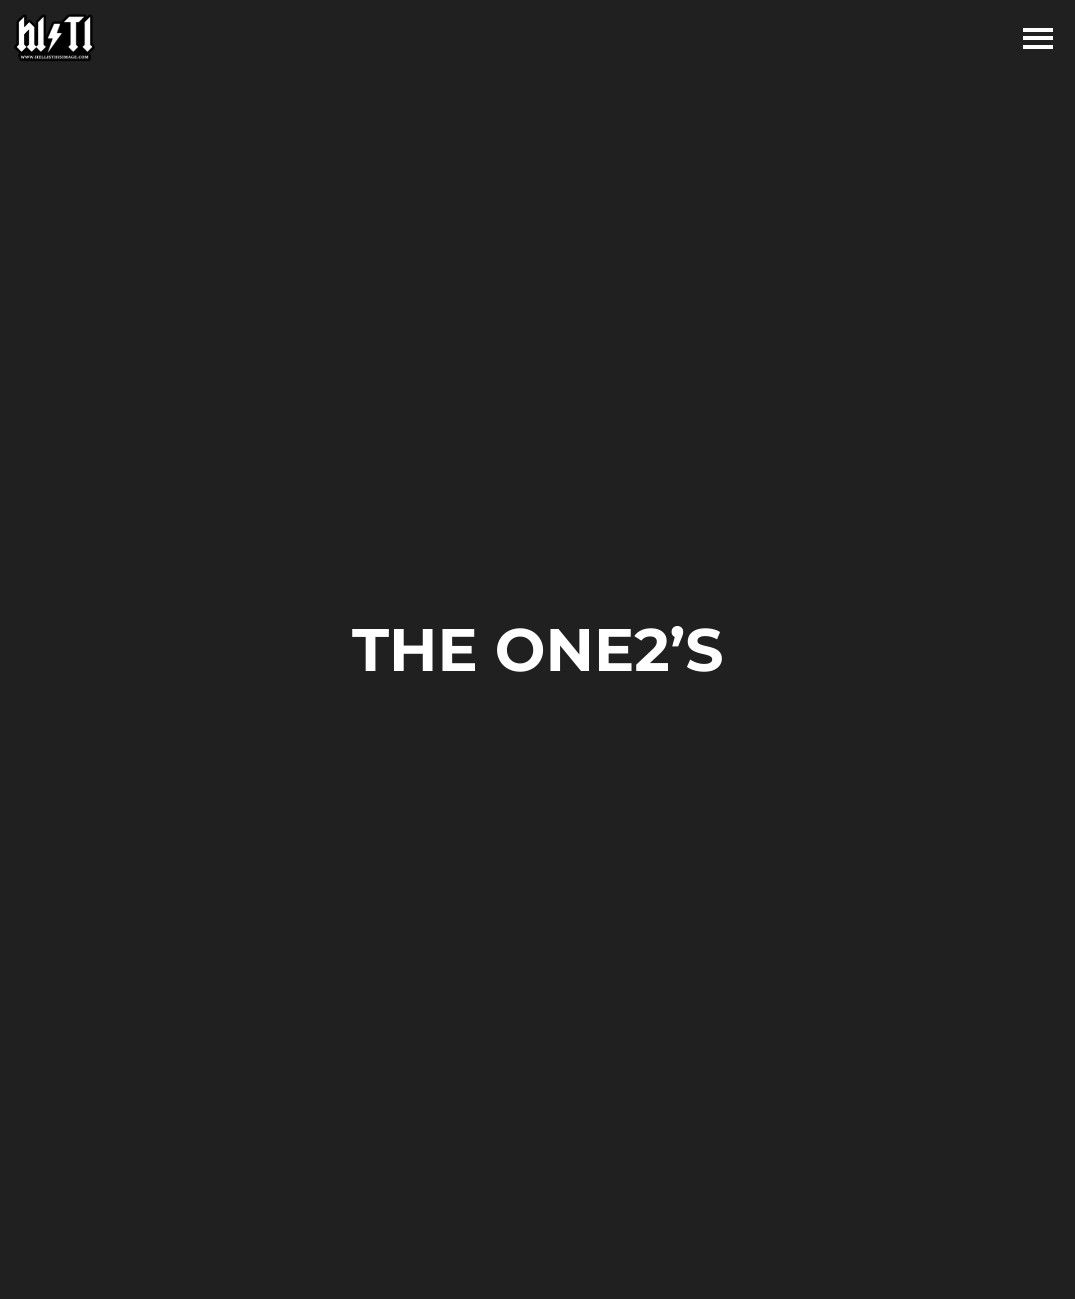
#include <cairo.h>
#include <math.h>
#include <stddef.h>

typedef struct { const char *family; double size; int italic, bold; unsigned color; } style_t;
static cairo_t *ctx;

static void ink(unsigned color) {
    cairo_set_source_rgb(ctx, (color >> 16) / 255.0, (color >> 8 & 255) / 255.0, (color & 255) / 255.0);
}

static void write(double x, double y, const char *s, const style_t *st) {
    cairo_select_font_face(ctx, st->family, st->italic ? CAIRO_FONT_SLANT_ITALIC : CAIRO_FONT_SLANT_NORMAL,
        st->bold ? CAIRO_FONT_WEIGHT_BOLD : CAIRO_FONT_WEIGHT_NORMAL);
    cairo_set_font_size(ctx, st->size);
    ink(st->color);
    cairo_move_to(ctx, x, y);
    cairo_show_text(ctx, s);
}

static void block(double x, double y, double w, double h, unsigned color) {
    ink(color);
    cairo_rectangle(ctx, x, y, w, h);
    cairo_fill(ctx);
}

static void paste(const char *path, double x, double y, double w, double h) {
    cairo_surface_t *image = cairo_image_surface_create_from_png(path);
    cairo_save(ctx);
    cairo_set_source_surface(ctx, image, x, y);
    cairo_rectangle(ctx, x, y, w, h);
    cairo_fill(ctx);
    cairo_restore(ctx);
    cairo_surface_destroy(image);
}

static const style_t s1 = {"Montserrat", 60, 0, 1, 0xffffff};

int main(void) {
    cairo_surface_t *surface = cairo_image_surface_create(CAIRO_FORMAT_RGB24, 1075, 1299);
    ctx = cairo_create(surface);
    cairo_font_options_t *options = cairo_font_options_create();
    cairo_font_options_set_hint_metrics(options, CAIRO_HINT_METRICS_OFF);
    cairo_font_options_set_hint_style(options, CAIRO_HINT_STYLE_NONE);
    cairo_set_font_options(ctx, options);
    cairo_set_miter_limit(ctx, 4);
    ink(0x202020);
    cairo_paint(ctx);
    paste("pic1.png", 14, 14, 81, 48);
    block(1023, 36, 30, 4, 0xffffff);
    block(1023, 28, 30, 4, 0xffffff);
    block(1023, 45, 30, 4, 0xffffff);
    write(352, 671, "THE ONE2’S", &s1);
    cairo_surface_write_to_png(surface, "screenshot.png");
    cairo_font_options_destroy(options);
    cairo_destroy(ctx);
    cairo_surface_destroy(surface);
    return 0;
}
